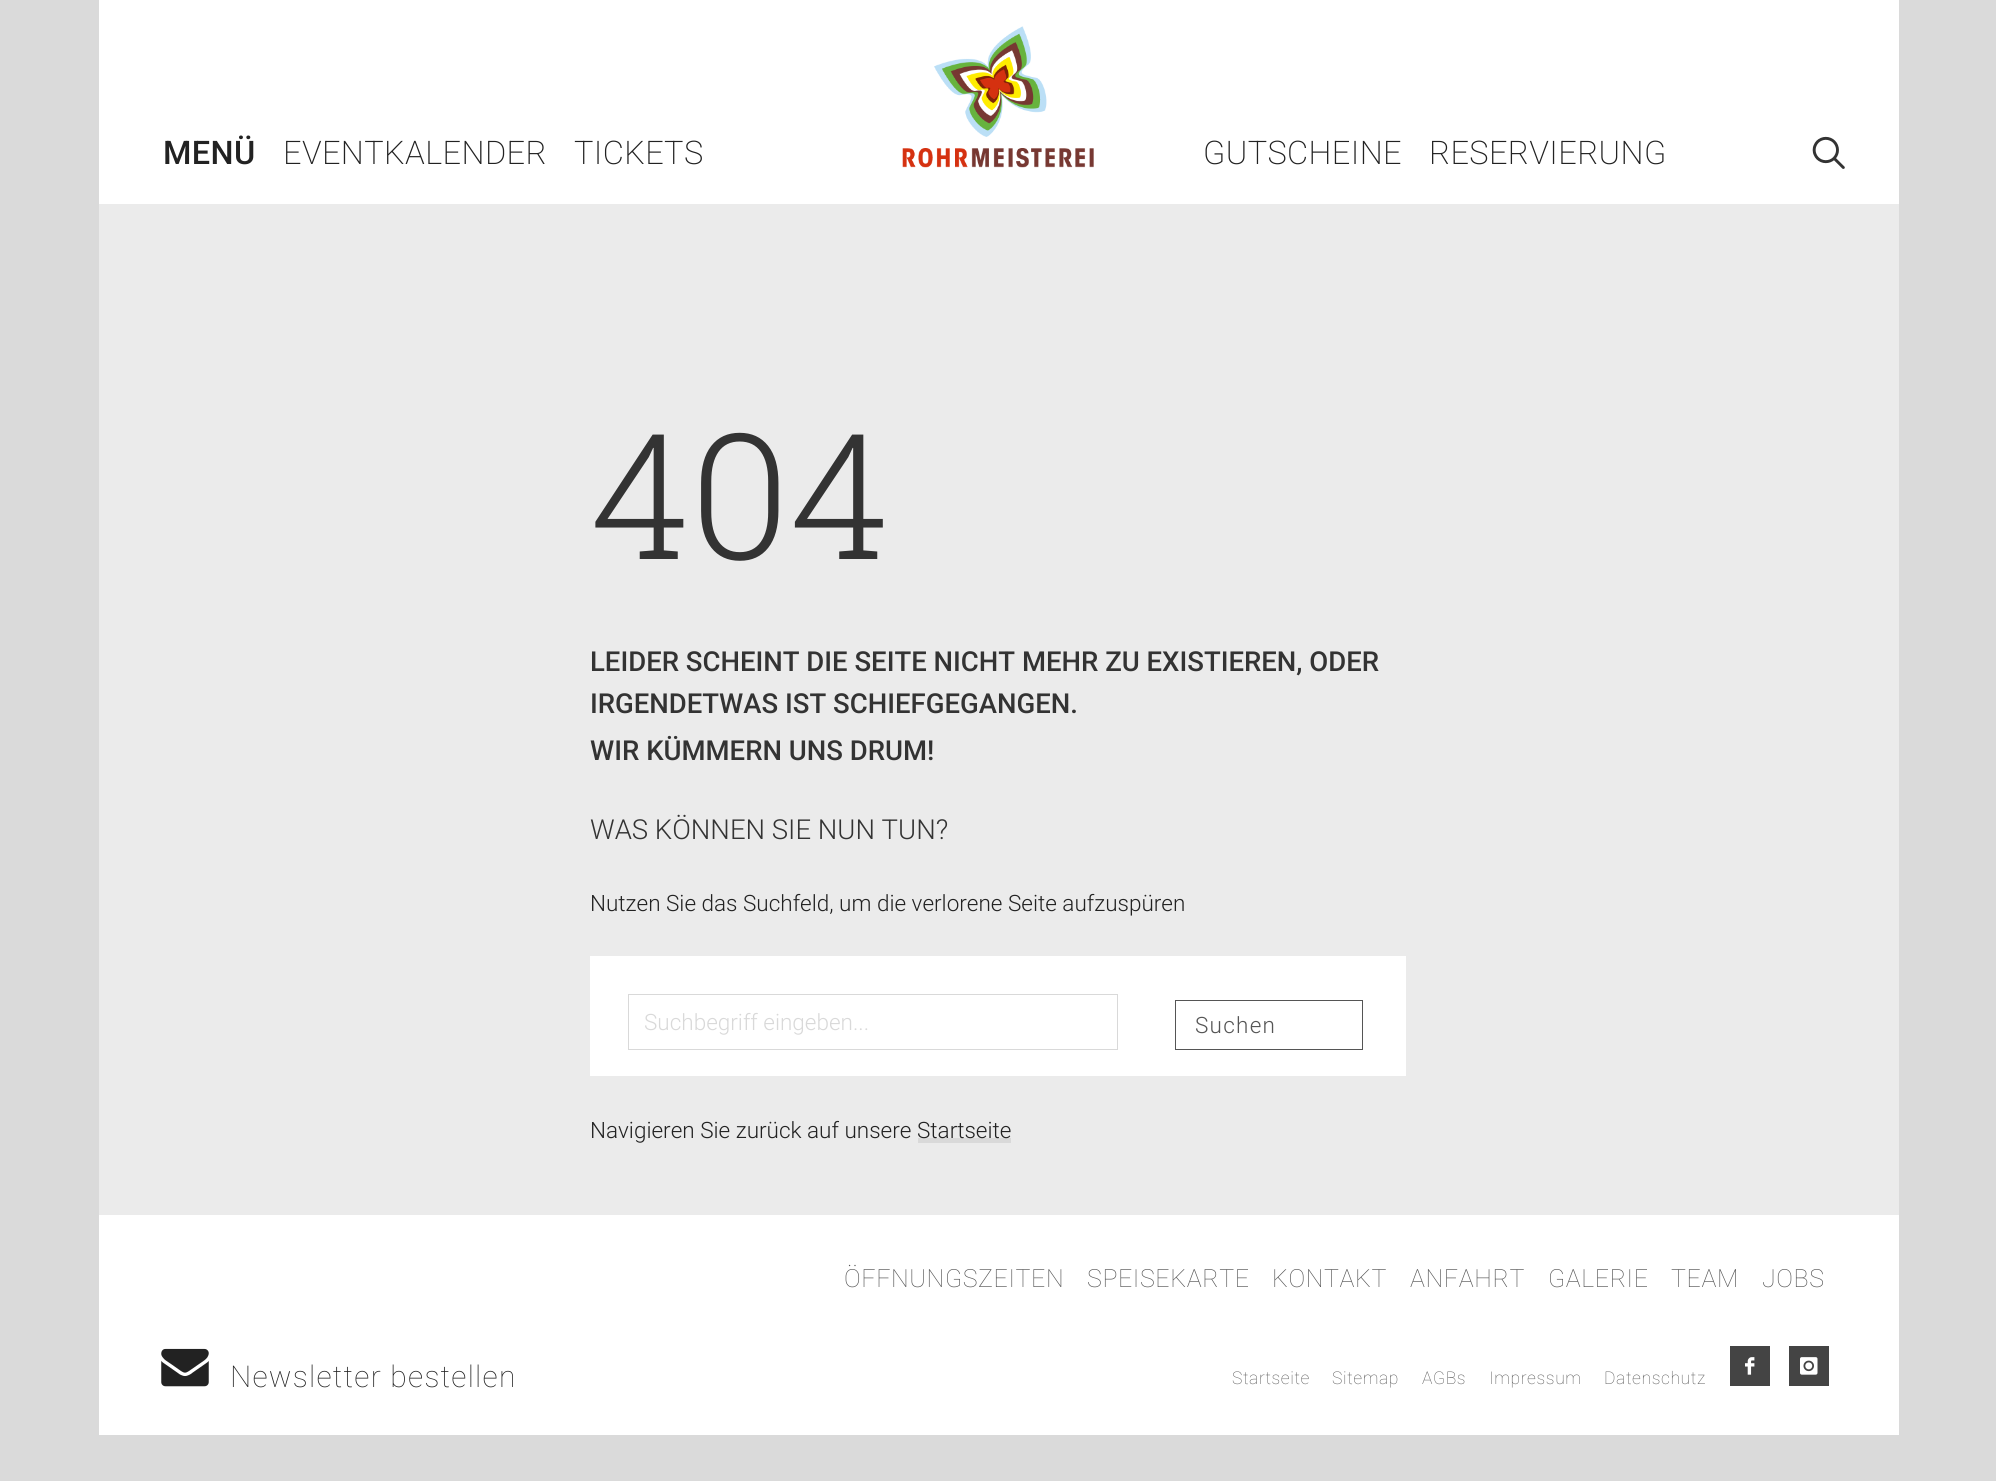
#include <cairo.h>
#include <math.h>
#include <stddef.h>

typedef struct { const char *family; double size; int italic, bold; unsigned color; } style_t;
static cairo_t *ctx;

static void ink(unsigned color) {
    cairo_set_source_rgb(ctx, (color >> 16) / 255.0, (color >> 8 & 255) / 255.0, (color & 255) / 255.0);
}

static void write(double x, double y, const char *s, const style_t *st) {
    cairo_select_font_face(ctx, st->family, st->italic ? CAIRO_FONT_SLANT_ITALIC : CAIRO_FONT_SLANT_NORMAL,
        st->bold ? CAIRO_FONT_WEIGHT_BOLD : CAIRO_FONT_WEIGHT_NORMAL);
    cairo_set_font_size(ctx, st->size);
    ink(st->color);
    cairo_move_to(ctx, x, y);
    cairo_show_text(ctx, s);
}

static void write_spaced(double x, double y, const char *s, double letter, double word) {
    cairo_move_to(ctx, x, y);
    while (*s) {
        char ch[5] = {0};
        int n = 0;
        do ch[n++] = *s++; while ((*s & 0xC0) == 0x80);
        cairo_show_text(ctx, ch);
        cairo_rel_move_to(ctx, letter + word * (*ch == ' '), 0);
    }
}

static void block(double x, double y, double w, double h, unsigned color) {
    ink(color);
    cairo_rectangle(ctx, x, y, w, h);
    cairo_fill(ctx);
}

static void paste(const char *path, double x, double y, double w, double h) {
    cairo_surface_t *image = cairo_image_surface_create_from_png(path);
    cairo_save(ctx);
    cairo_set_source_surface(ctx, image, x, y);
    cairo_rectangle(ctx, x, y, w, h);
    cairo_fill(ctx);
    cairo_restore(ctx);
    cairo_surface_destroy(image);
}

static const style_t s1 = {"Roboto Slab Light", 175, 0, 0, 0x333333};
static const style_t s2 = {"Roboto Medium", 27.5, 0, 0, 0x333333};
static const style_t s3 = {"Roboto Light", 27.5, 0, 0, 0x333333};
static const style_t s4 = {"Roboto Light", 22.5, 0, 0, 0x222222};
static const style_t s5 = {"Roboto Light", 22.5, 0, 0, 0xd9d9d9};

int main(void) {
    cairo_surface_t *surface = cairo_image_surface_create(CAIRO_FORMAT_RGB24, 1996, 1481);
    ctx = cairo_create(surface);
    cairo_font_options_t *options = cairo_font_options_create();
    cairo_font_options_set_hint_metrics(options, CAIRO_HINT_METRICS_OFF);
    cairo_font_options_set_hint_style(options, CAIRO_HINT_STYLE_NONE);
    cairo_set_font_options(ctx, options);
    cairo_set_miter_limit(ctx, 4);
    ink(0xdadada);
    cairo_paint(ctx);
    block(99, 0, 1800, 1435, 0xffffff);
    paste("pic1.png", 902, 26, 192, 142);
    cairo_select_font_face(ctx, "Roboto Medium", CAIRO_FONT_SLANT_NORMAL, CAIRO_FONT_WEIGHT_NORMAL);
    cairo_set_font_size(ctx, 32.5);
    ink(0x222222);
    write_spaced(163, 164, "MENÜ", 0.4, 0);
    cairo_select_font_face(ctx, "Roboto ExtraLight", CAIRO_FONT_SLANT_NORMAL, CAIRO_FONT_WEIGHT_NORMAL);
    write_spaced(283, 164, "EVENTKALENDER", 0.4, 0);
    write_spaced(574, 164, "TICKETS", 0.4, 0);
    write_spaced(1203, 164, "GUTSCHEINE", 0.4, 0);
    write_spaced(1429, 164, "RESERVIERUNG", 0.4, 0);
    paste("pic2.png", 1812, 136, 33, 33);
    block(99, 204, 1800, 1011, 0xebebeb);
    write(590, 559, "404", &s1);
    write(590, 671, "LEIDER SCHEINT DIE SEITE NICHT MEHR ZU EXISTIEREN, ODER", &s2);
    write(590, 713, "IRGENDETWAS IST SCHIEFGEGANGEN.", &s2);
    write(590, 760, "WIR KÜMMERN UNS DRUM!", &s2);
    write(590, 839, "WAS KÖNNEN SIE NUN TUN?", &s3);
    write(590, 911, "Nutzen Sie das Suchfeld, um die verlorene Seite aufzuspüren", &s4);
    block(590, 956, 816, 120, 0xffffff);
    cairo_rectangle(ctx, 628.5, 994.5, 489, 55);
    ink(0xd9d9d9);
    cairo_set_line_width(ctx, 1);
    cairo_stroke(ctx);
    write(644, 1030, "Suchbegriff eingeben...", &s5);
    cairo_rectangle(ctx, 1175.5, 1000.5, 187, 49);
    ink(0x555555);
    cairo_stroke(ctx);
    write_spaced(1195, 1033, "Suchen", 1.25, 0);
    write(590, 1138, "Navigieren Sie zurück auf unsere", &s4);
    block(918, 1138, 93, 5, 0xd9d9d9);
    write(917, 1138, "Startseite", &s4);
    cairo_select_font_face(ctx, "Roboto Thin", CAIRO_FONT_SLANT_NORMAL, CAIRO_FONT_WEIGHT_NORMAL);
    cairo_set_font_size(ctx, 25);
    ink(0x555555);
    write_spaced(844, 1287, "ÖFFNUNGSZEITEN", 0.6, 0);
    write_spaced(1087, 1287, "SPEISEKARTE", 0.6, 0);
    write_spaced(1272, 1287, "KONTAKT", 0.6, 0);
    write_spaced(1410, 1287, "ANFAHRT", 0.6, 0);
    write_spaced(1548, 1287, "GALERIE", 0.6, 0);
    write_spaced(1671, 1287, "TEAM", 0.6, 0);
    write_spaced(1762, 1287, "JOBS", 0.6, 0);
    paste("pic3.png", 161, 1348, 48, 39);
    cairo_set_font_size(ctx, 30);
    ink(0x222222);
    write_spaced(230, 1387, "Newsletter bestellen", 1.25, 0);
    cairo_set_font_size(ctx, 17.5);
    ink(0x555555);
    write_spaced(1232, 1384, "Startseite", 0.6, 0);
    write_spaced(1332, 1384, "Sitemap", 0.6, 0);
    write_spaced(1422, 1384, "AGBs", 0.6, 0);
    write_spaced(1489, 1384, "Impressum", 0.6, 0);
    write_spaced(1604, 1384, "Datenschutz", 0.6, 0);
    block(1730, 1346, 40, 40, 0x444444);
    paste("pic4.png", 1745, 1357, 10, 18);
    block(1789, 1346, 40, 40, 0x444444);
    paste("pic5.png", 1800, 1357, 18, 18);
    cairo_surface_write_to_png(surface, "screenshot.png");
    cairo_font_options_destroy(options);
    cairo_destroy(ctx);
    cairo_surface_destroy(surface);
    return 0;
}
